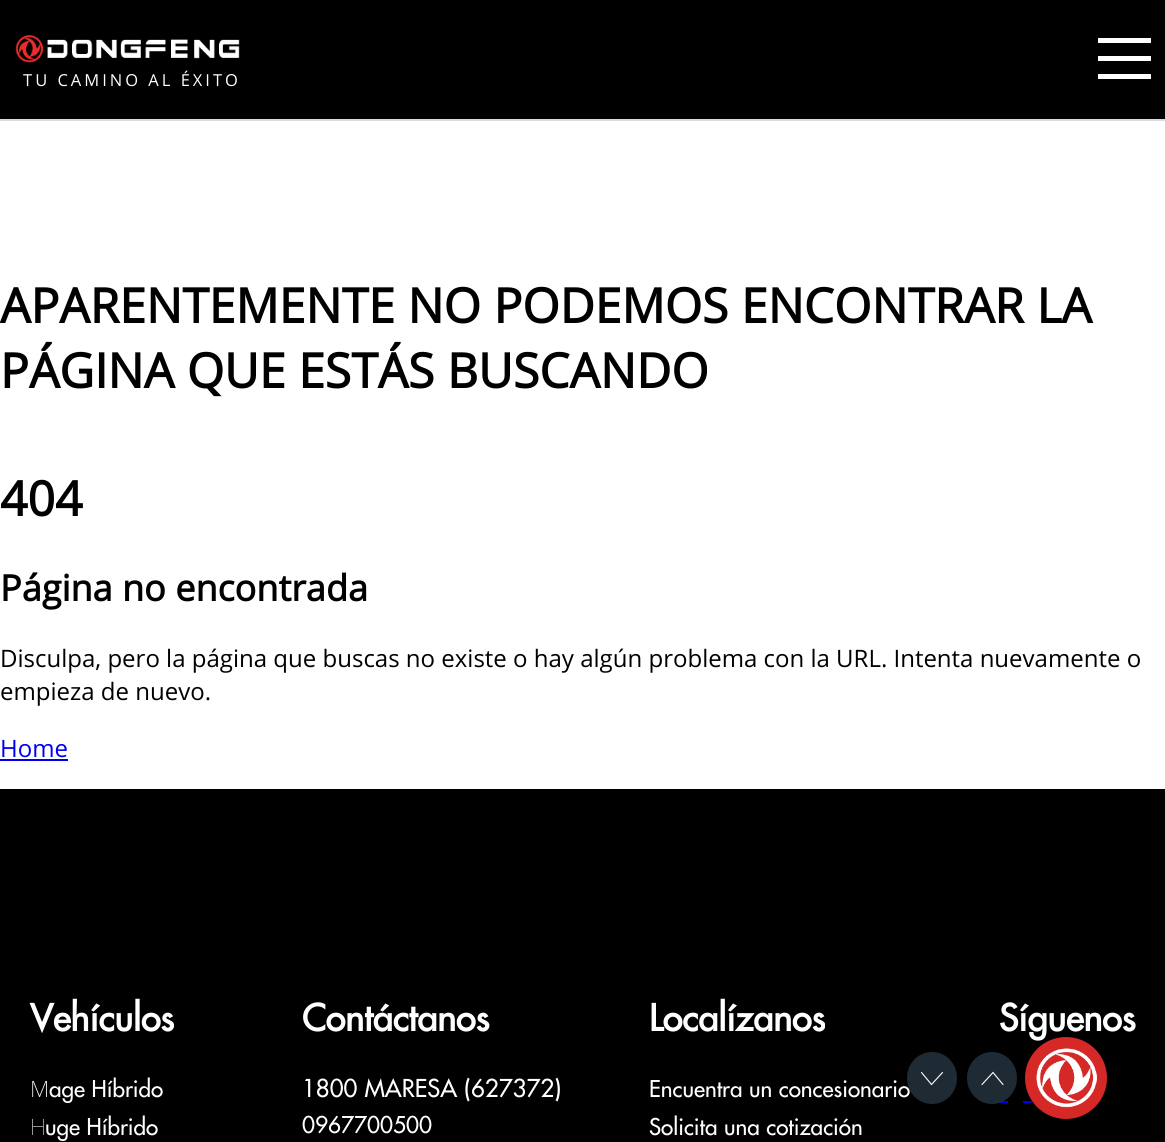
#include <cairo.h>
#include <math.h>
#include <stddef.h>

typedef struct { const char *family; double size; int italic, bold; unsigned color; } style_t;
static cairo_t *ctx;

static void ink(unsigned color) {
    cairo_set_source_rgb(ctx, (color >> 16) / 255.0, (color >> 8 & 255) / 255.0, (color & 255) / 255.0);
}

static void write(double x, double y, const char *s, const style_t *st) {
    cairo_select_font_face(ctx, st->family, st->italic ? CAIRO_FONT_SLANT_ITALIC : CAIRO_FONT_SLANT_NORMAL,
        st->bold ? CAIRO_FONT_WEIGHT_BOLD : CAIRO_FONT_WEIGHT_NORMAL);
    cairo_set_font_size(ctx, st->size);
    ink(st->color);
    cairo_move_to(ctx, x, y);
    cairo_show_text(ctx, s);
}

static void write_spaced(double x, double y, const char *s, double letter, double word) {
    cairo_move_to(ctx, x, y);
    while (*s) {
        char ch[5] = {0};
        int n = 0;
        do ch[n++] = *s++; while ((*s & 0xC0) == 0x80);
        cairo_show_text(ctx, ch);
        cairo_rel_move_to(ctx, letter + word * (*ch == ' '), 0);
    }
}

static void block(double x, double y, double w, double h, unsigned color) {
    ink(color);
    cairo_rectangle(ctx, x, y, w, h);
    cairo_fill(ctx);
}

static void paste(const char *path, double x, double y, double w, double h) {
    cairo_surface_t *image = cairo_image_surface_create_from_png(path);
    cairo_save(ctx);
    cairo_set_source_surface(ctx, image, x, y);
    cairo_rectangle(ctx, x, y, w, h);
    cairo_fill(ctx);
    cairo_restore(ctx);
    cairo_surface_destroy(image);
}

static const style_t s1 = {"Open Sans", 48, 0, 1, 0x000000};
static const style_t s2 = {"Open Sans", 36, 0, 1, 0x000000};
static const style_t s3 = {"Open Sans", 24, 0, 0, 0x000000};
static const style_t s4 = {"Open Sans", 24, 0, 0, 0x0000ee};
static const style_t s5 = {"Futura", 36, 0, 1, 0xffffff};
static const style_t s6 = {"Noto Sans ExtraLight", 22.5, 0, 0, 0xffffff};
static const style_t s7 = {"Futura Medium", 22.5, 0, 0, 0xffffff};
static const style_t s8 = {"Noto Sans Thin", 22.5, 0, 0, 0xffffff};
static const style_t s9 = {"Futura Medium", 24, 0, 0, 0xffffff};

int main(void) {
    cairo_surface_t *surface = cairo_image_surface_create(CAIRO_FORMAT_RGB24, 1165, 1142);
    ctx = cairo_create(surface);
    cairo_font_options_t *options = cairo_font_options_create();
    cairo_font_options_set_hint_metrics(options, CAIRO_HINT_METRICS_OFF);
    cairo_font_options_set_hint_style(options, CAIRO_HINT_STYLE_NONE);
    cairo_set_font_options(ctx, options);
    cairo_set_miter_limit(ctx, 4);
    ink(0xffffff);
    cairo_paint(ctx);
    block(0, 0, 1165, 119, 0x000000);
    block(0, 119, 1165, 2, 0xdbdcdd);
    paste("pic1.png", 15, 35, 225, 28);
    cairo_select_font_face(ctx, "Open Sans", CAIRO_FONT_SLANT_NORMAL, CAIRO_FONT_WEIGHT_NORMAL);
    cairo_set_font_size(ctx, 16.5);
    ink(0xffffff);
    write_spaced(23, 86, "TU CAMINO AL ÉXITO", 3, 0);
    block(1098, 38, 53, 5, 0xffffff);
    block(1098, 56, 53, 5, 0xffffff);
    block(1098, 74, 53, 5, 0xffffff);
    write(0, 323, "APARENTEMENTE NO PODEMOS ENCONTRAR LA", &s1);
    write(0, 388, "PÁGINA QUE ESTÁS BUSCANDO", &s1);
    write(0, 516, "404", &s1);
    write(0, 601, "Página no encontrada", &s2);
    write(0, 667, "Disculpa, pero la página que buscas no existe o hay algún problema con la URL. Intenta nuevamente o", &s3);
    write(0, 700, "empieza de nuevo.", &s3);
    write(0, 757, "Home", &s4);
    block(0, 759, 68, 2, 0x0000ee);
    block(0, 789, 1165, 353, 0x000000);
    write(30, 1031, "Vehículos", &s5);
    write(30, 1097, "M", &s6);
    write(49, 1097, "age Híbrido", &s7);
    write(30, 1135, "H", &s8);
    write(45, 1135, "uge Híbrido", &s7);
    write(302, 1031, "Contáctanos", &s5);
    write(302, 1097, "1800 MARESA (627372)", &s9);
    write(302, 1133, "0967700500", &s7);
    write(649, 1031, "Localízanos", &s5);
    write(649, 1097, "Encuentra un concesionario", &s7);
    write(649, 1135, "Solicita una cotización", &s7);
    write(999, 1031, "Síguenos", &s5);
    block(999, 1101, 9, 2, 0x0000ee);
    block(1023, 1101, 9, 2, 0x0000ee);
    ink(0x1e2b35);
    cairo_new_path(ctx);
    cairo_move_to(ctx, 932, 1052);
    cairo_curve_to(ctx, 946, 1052, 957, 1063.5, 957, 1078);
    cairo_curve_to(ctx, 957, 1092.5, 946, 1104, 932, 1104);
    cairo_curve_to(ctx, 918, 1104, 907, 1092.5, 907, 1078);
    cairo_curve_to(ctx, 907, 1063.5, 918, 1052, 932, 1052);
    cairo_close_path(ctx);
    cairo_fill(ctx);
    cairo_new_path(ctx);
    cairo_move_to(ctx, 942.5, 1072.5);
    cairo_line_to(ctx, 931.5, 1084.5);
    cairo_line_to(ctx, 921.5, 1072.5);
    ink(0xffffff);
    cairo_set_line_width(ctx, 1.1);
    cairo_set_line_cap(ctx, CAIRO_LINE_CAP_ROUND);
    cairo_stroke(ctx);
    ink(0x1e2b35);
    cairo_new_path(ctx);
    cairo_move_to(ctx, 992, 1052);
    cairo_curve_to(ctx, 1006, 1052, 1017, 1063.5, 1017, 1078);
    cairo_curve_to(ctx, 1017, 1092.5, 1006, 1104, 992, 1104);
    cairo_curve_to(ctx, 978, 1104, 967, 1092.5, 967, 1078);
    cairo_curve_to(ctx, 967, 1063.5, 978, 1052, 992, 1052);
    cairo_close_path(ctx);
    cairo_fill(ctx);
    cairo_new_path(ctx);
    cairo_move_to(ctx, 982, 1084.5);
    cairo_line_to(ctx, 993, 1072.5);
    cairo_line_to(ctx, 1003, 1084.5);
    ink(0xffffff);
    cairo_stroke(ctx);
    ink(0xd62827);
    cairo_arc(ctx, 1066, 1078, 41, 0, 2 * M_PI);
    cairo_fill(ctx);
    paste("pic2.png", 1036, 1048, 61, 60);
    cairo_surface_write_to_png(surface, "screenshot.png");
    cairo_font_options_destroy(options);
    cairo_destroy(ctx);
    cairo_surface_destroy(surface);
    return 0;
}
